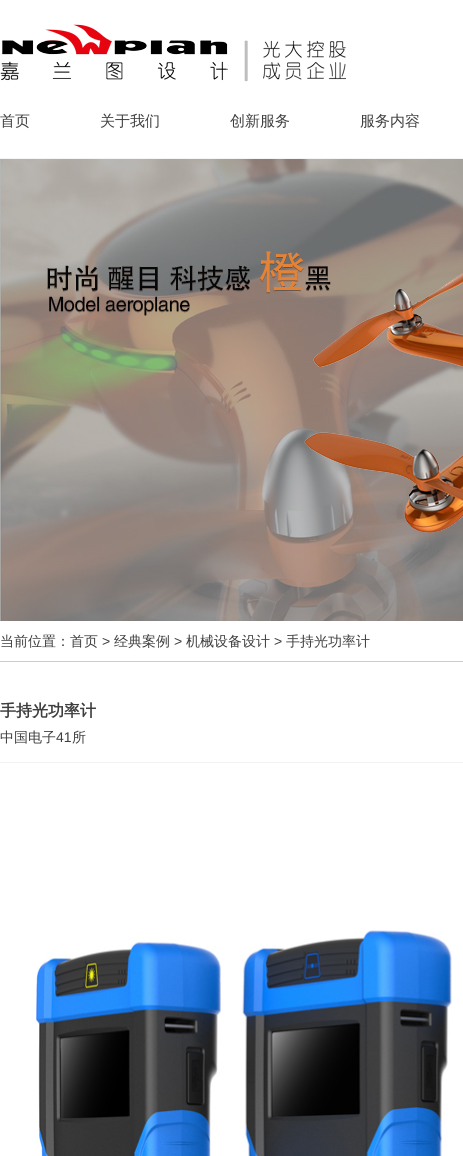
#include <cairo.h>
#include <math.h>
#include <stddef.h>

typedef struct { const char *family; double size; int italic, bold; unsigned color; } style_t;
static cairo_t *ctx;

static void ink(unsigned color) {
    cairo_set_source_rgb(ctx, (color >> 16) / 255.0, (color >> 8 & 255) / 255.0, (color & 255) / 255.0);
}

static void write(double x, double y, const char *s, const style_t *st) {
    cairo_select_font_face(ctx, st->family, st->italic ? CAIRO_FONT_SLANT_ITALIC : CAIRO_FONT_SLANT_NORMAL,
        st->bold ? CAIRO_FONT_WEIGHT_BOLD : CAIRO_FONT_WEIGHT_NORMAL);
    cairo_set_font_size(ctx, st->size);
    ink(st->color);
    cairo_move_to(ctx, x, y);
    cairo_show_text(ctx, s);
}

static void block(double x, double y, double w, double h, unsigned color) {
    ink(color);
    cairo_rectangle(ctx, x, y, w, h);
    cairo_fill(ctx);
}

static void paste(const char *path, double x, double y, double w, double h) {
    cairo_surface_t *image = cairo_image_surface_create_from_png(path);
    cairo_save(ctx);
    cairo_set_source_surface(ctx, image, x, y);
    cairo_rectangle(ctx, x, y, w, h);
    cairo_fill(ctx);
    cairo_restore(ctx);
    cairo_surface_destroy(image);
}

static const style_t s1 = {"WenQuanYi Zen Hei Medium", 15, 0, 0, 0x3e3e3e};
static const style_t s2 = {"WenQuanYi Zen Hei Medium", 14, 0, 0, 0x3e3e3e};
static const style_t s3 = {"Liberation Sans", 14, 0, 0, 0x3e3e3e};
static const style_t s4 = {"WenQuanYi Zen Hei", 16, 0, 1, 0x3e3e3e};

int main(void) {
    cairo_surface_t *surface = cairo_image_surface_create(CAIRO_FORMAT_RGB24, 463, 1156);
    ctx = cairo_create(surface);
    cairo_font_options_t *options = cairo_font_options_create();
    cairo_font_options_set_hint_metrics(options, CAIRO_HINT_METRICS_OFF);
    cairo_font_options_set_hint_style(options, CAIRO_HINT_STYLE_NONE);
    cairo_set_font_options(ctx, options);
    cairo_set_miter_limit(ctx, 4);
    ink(0xffffff);
    cairo_paint(ctx);
    paste("pic1.png", 0, 24, 347, 58);
    block(0, 158, 463, 1, 0xf5f5f5);
    write(0, 126, "首页", &s1);
    write(100, 126, "关于我们", &s1);
    write(230, 126, "创新服务", &s1);
    write(360, 126, "服务内容", &s1);
    paste("pic2.png", 0, 159, 463, 462);
    block(0, 661, 463, 1, 0xcccccc);
    write(0, 646, "当前位置：首页", &s2);
    write(102, 646, ">", &s3);
    write(114, 646, "经典案例", &s2);
    write(174, 646, ">", &s3);
    write(186, 646, "机械设备设计", &s2);
    write(274, 646, ">", &s3);
    write(286, 646, "手持光功率计", &s2);
    block(0, 762, 463, 1, 0xf2f2f2);
    write(0, 716, "手持光功率计", &s4);
    write(0, 742, "中国电子", &s2);
    write(56, 742, "41", &s3);
    write(72, 742, "所", &s2);
    paste("pic3.png", 36, 930, 416, 226);
    cairo_surface_write_to_png(surface, "screenshot.png");
    cairo_font_options_destroy(options);
    cairo_destroy(ctx);
    cairo_surface_destroy(surface);
    return 0;
}
